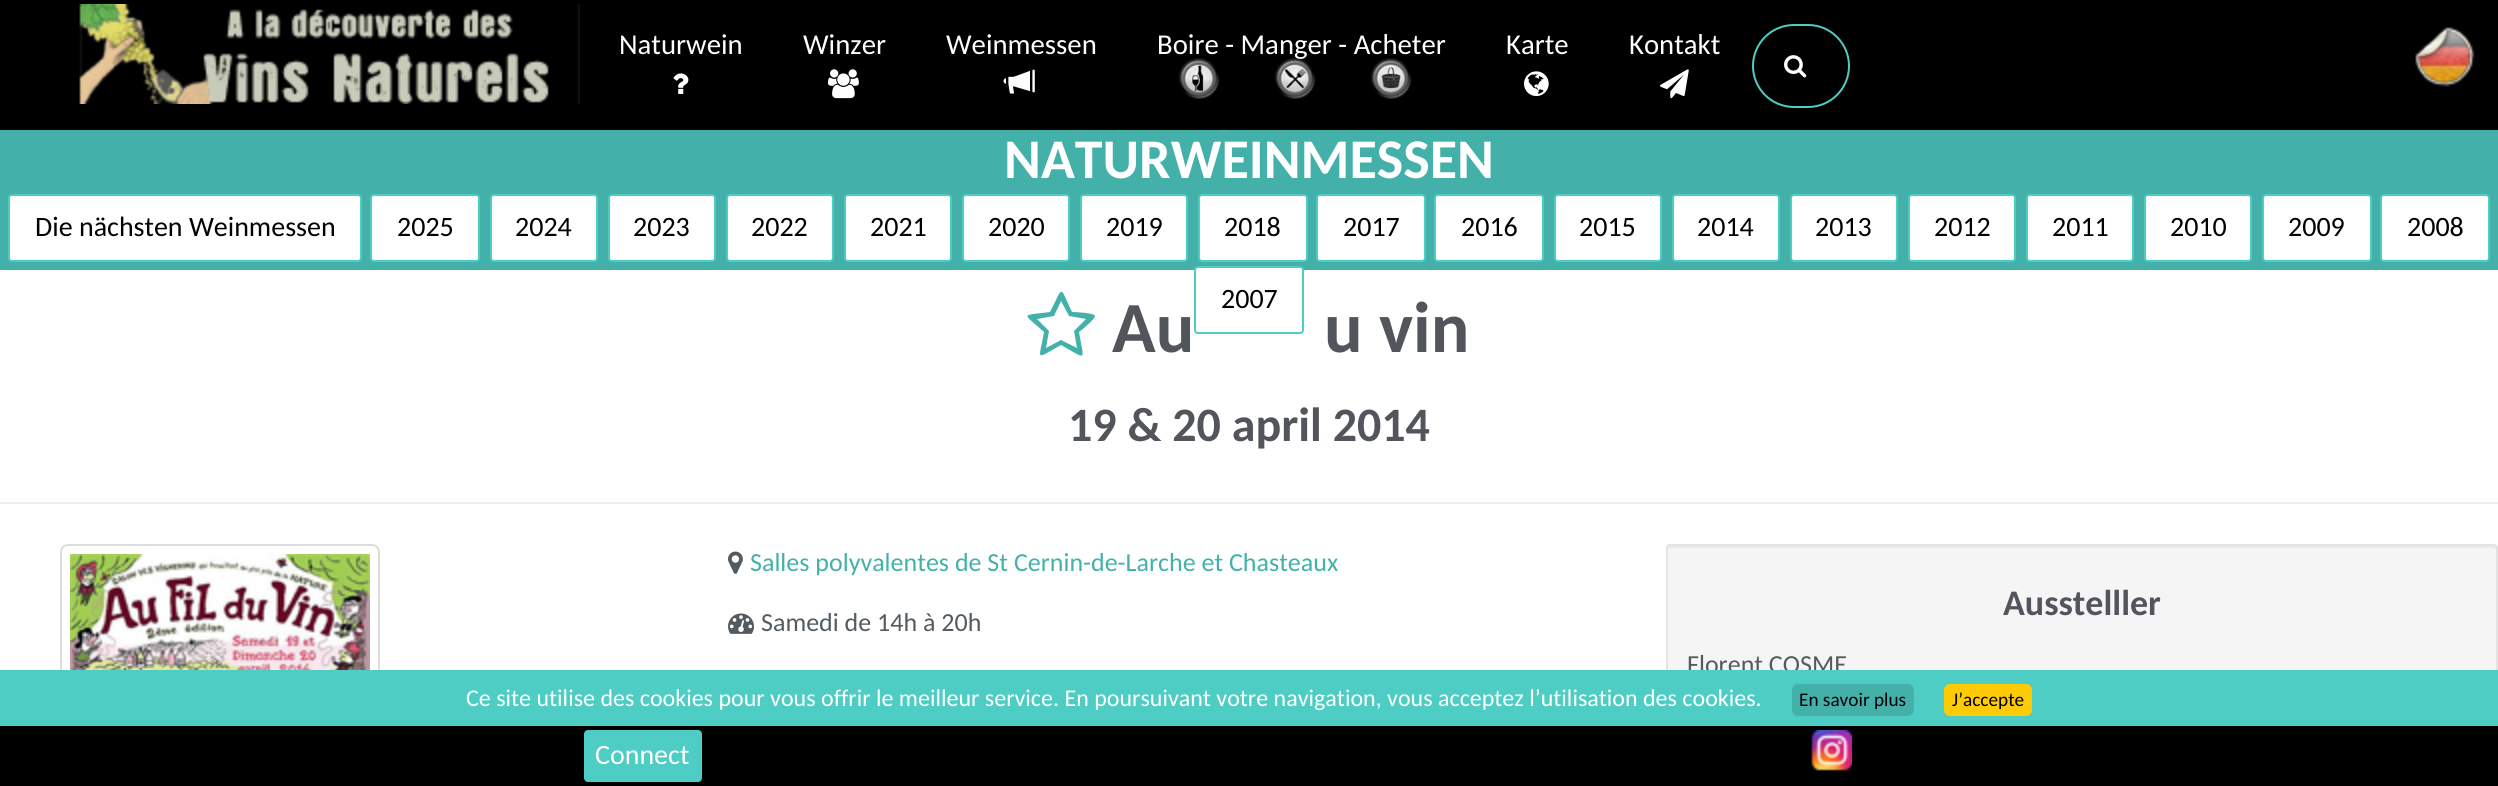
#include <cairo.h>
#include <math.h>
#include <stddef.h>

typedef struct { const char *family; double size; int italic, bold; unsigned color; } style_t;
static cairo_t *ctx;

static void ink(unsigned color) {
    cairo_set_source_rgb(ctx, (color >> 16) / 255.0, (color >> 8 & 255) / 255.0, (color & 255) / 255.0);
}

static void write(double x, double y, const char *s, const style_t *st) {
    cairo_select_font_face(ctx, st->family, st->italic ? CAIRO_FONT_SLANT_ITALIC : CAIRO_FONT_SLANT_NORMAL,
        st->bold ? CAIRO_FONT_WEIGHT_BOLD : CAIRO_FONT_WEIGHT_NORMAL);
    cairo_set_font_size(ctx, st->size);
    ink(st->color);
    cairo_move_to(ctx, x, y);
    cairo_show_text(ctx, s);
}

static void block(double x, double y, double w, double h, unsigned color) {
    ink(color);
    cairo_rectangle(ctx, x, y, w, h);
    cairo_fill(ctx);
}

static void round_path(double x, double y, double w, double h, double r) {
    cairo_new_sub_path(ctx);
    cairo_arc(ctx, x + w - r, y + h - r, r, 0, M_PI / 2);
    cairo_arc(ctx, x + r, y + h - r, r, M_PI / 2, M_PI);
    cairo_arc(ctx, x + r, y + r, r, M_PI, 1.5 * M_PI);
    cairo_arc(ctx, x + w - r, y + r, r, 1.5 * M_PI, 2 * M_PI);
    cairo_close_path(ctx);
}

static void paste(const char *path, double x, double y, double w, double h) {
    cairo_surface_t *image = cairo_image_surface_create_from_png(path);
    cairo_save(ctx);
    cairo_set_source_surface(ctx, image, x, y);
    cairo_rectangle(ctx, x, y, w, h);
    cairo_fill(ctx);
    cairo_restore(ctx);
    cairo_surface_destroy(image);
}

static const style_t s1 = {"Carlito", 28.75, 0, 0, 0xffffff};
static const style_t s2 = {"Carlito", 56, 0, 1, 0xffffff};
static const style_t s3 = {"Carlito", 28, 0, 0, 0x000000};
static const style_t s4 = {"Carlito", 72, 0, 1, 0x53555c};
static const style_t s5 = {"Carlito", 48, 0, 1, 0x53555c};
static const style_t s6 = {"Carlito", 26, 0, 0, 0x43b1a9};
static const style_t s7 = {"Carlito", 26, 0, 0, 0x535b60};
static const style_t s8 = {"Carlito", 36, 0, 1, 0x53555c};
static const style_t s9 = {"Carlito", 28, 0, 0, 0xffffff};
static const style_t s10 = {"Carlito", 24, 0, 0, 0xffffff};
static const style_t s11 = {"Carlito", 19.25, 0, 0, 0x000000};

int main(void) {
    cairo_surface_t *surface = cairo_image_surface_create(CAIRO_FORMAT_RGB24, 2498, 786);
    ctx = cairo_create(surface);
    cairo_font_options_t *options = cairo_font_options_create();
    cairo_font_options_set_hint_metrics(options, CAIRO_HINT_METRICS_OFF);
    cairo_font_options_set_hint_style(options, CAIRO_HINT_STYLE_NONE);
    cairo_set_font_options(ctx, options);
    cairo_set_miter_limit(ctx, 4);
    ink(0x000000);
    cairo_paint(ctx);
    paste("pic1.png", 79, 4, 501, 100);
    write(619, 54, "Naturwein", &s1);
    paste("pic2.png", 673, 73, 16, 21);
    write(803, 54, "Winzer", &s1);
    paste("pic3.png", 828, 69, 31, 30);
    write(946, 54, "Weinmessen", &s1);
    paste("pic4.png", 1003, 69, 32, 25);
    write(1157, 54, "Boire - Manger - Acheter", &s1);
    paste("pic5.png", 1178, 58, 42, 41);
    paste("pic6.png", 1274, 58, 42, 41);
    paste("pic7.png", 1370, 58, 42, 41);
    write(1506, 54, "Karte", &s1);
    paste("pic8.png", 1524, 71, 25, 26);
    write(1629, 54, "Kontakt", &s1);
    paste("pic9.png", 1660, 69, 29, 30);
    round_path(1753, 25, 96, 82, 41);
    ink(0x4ecdc4);
    cairo_stroke(ctx);
    paste("pic10.png", 1784, 55, 23, 23);
    paste("pic11.png", 2412, 24, 63, 63);
    block(0, 130, 2498, 140, 0x43b1a9);
    write(1004, 178, "NATURWEINMESSEN", &s2);
    round_path(9, 195, 352, 66, 3);
    cairo_fill_preserve(ctx);
    ink(0x4ecdc4);
    cairo_stroke(ctx);
    write(35, 236, "Die nächsten Weinmessen", &s3);
    ink(0xffffff);
    round_path(371, 195, 108, 66, 3);
    cairo_fill_preserve(ctx);
    ink(0x4ecdc4);
    cairo_stroke(ctx);
    write(397, 236, "2025", &s3);
    ink(0xffffff);
    round_path(491, 195, 106, 66, 3);
    cairo_fill_preserve(ctx);
    ink(0x4ecdc4);
    cairo_stroke(ctx);
    write(515, 236, "2024", &s3);
    ink(0xffffff);
    round_path(609, 195, 106, 66, 3);
    cairo_fill_preserve(ctx);
    ink(0x4ecdc4);
    cairo_stroke(ctx);
    write(633, 236, "2023", &s3);
    ink(0xffffff);
    round_path(727, 195, 106, 66, 3);
    cairo_fill_preserve(ctx);
    ink(0x4ecdc4);
    cairo_stroke(ctx);
    write(751, 236, "2022", &s3);
    ink(0xffffff);
    round_path(845, 195, 106, 66, 3);
    cairo_fill_preserve(ctx);
    ink(0x4ecdc4);
    cairo_stroke(ctx);
    write(870, 236, "2021", &s3);
    ink(0xffffff);
    round_path(963, 195, 106, 66, 3);
    cairo_fill_preserve(ctx);
    ink(0x4ecdc4);
    cairo_stroke(ctx);
    write(988, 236, "2020", &s3);
    ink(0xffffff);
    round_path(1081, 195, 106, 66, 3);
    cairo_fill_preserve(ctx);
    ink(0x4ecdc4);
    cairo_stroke(ctx);
    write(1106, 236, "2019", &s3);
    ink(0xffffff);
    round_path(1199, 195, 108, 66, 3);
    cairo_fill_preserve(ctx);
    ink(0x4ecdc4);
    cairo_stroke(ctx);
    write(1224, 236, "2018", &s3);
    ink(0xffffff);
    round_path(1317, 195, 108, 66, 3);
    cairo_fill_preserve(ctx);
    ink(0x4ecdc4);
    cairo_stroke(ctx);
    write(1343, 236, "2017", &s3);
    ink(0xffffff);
    round_path(1435, 195, 108, 66, 3);
    cairo_fill_preserve(ctx);
    ink(0x4ecdc4);
    cairo_stroke(ctx);
    write(1461, 236, "2016", &s3);
    ink(0xffffff);
    round_path(1555, 195, 106, 66, 3);
    cairo_fill_preserve(ctx);
    ink(0x4ecdc4);
    cairo_stroke(ctx);
    write(1579, 236, "2015", &s3);
    ink(0xffffff);
    round_path(1673, 195, 106, 66, 3);
    cairo_fill_preserve(ctx);
    ink(0x4ecdc4);
    cairo_stroke(ctx);
    write(1697, 236, "2014", &s3);
    ink(0xffffff);
    round_path(1791, 195, 106, 66, 3);
    cairo_fill_preserve(ctx);
    ink(0x4ecdc4);
    cairo_stroke(ctx);
    write(1815, 236, "2013", &s3);
    ink(0xffffff);
    round_path(1909, 195, 106, 66, 3);
    cairo_fill_preserve(ctx);
    ink(0x4ecdc4);
    cairo_stroke(ctx);
    write(1934, 236, "2012", &s3);
    ink(0xffffff);
    round_path(2027, 195, 106, 66, 3);
    cairo_fill_preserve(ctx);
    ink(0x4ecdc4);
    cairo_stroke(ctx);
    write(2052, 236, "2011", &s3);
    ink(0xffffff);
    round_path(2145, 195, 106, 66, 3);
    cairo_fill_preserve(ctx);
    ink(0x4ecdc4);
    cairo_stroke(ctx);
    write(2170, 236, "2010", &s3);
    ink(0xffffff);
    round_path(2263, 195, 108, 66, 3);
    cairo_fill_preserve(ctx);
    ink(0x4ecdc4);
    cairo_stroke(ctx);
    write(2288, 236, "2009", &s3);
    ink(0xffffff);
    round_path(2381, 195, 108, 66, 3);
    cairo_fill_preserve(ctx);
    ink(0x4ecdc4);
    cairo_stroke(ctx);
    write(2407, 236, "2008", &s3);
    block(0, 270, 2498, 400, 0xffffff);
    round_path(1195, 267, 108, 66, 3);
    cairo_fill_preserve(ctx);
    ink(0x4ecdc4);
    cairo_stroke(ctx);
    write(1221, 308, "2007", &s3);
    ink(0x43b1a9);
    cairo_new_path(ctx);
    cairo_move_to(ctx, 1074, 331);
    cairo_line_to(ctx, 1086, 319);
    cairo_line_to(ctx, 1069, 316);
    cairo_line_to(ctx, 1061, 301);
    cairo_line_to(ctx, 1054, 316);
    cairo_line_to(ctx, 1037, 319);
    cairo_line_to(ctx, 1049, 331);
    cairo_line_to(ctx, 1046, 348);
    cairo_line_to(ctx, 1061, 340);
    cairo_line_to(ctx, 1077, 348);
    cairo_close_path(ctx);
    cairo_move_to(ctx, 1095, 316);
    cairo_curve_to(ctx, 1095, 319, 1082, 330, 1079, 332);
    cairo_curve_to(ctx, 1084, 362, 1088, 360, 1061, 345);
    cairo_curve_to(ctx, 1034, 360, 1039, 361, 1044, 332);
    cairo_curve_to(ctx, 1022, 312, 1020, 316, 1050, 312);
    cairo_curve_to(ctx, 1064, 285, 1059, 285, 1072, 312);
    cairo_curve_to(ctx, 1076, 312, 1095, 313, 1095, 316);
    cairo_close_path(ctx);
    cairo_fill(ctx);
    write(1112, 352, "Au", &s4);
    write(1324, 352, "u vin", &s4);
    write(1068, 441, "19 & 20 april 2014", &s5);
    block(0, 502, 2498, 2, 0xeeeeee);
    round_path(61, 545, 318, 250, 7);
    ink(0xdddddd);
    cairo_stroke(ctx);
    paste("pic12.png", 70, 554, 300, 116);
    paste("pic13.png", 728, 551, 15, 23);
    write(750, 571, "Salles polyvalentes de St Cernin-de-Larche et Chasteaux", &s6);
    paste("pic14.png", 728, 613, 26, 21);
    write(761, 631, "Samedi de 14h à 20h", &s7);
    ink(0xf5f5f5);
    round_path(1666, 544, 832, 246, 4);
    cairo_fill(ctx);
    ink(0xe9e9e9);
    cairo_new_path(ctx);
    cairo_move_to(ctx, 1670, 548);
    cairo_line_to(ctx, 2494, 548);
    cairo_curve_to(ctx, 2495, 548, 2496, 549, 2496, 550);
    cairo_line_to(ctx, 2496, 547);
    cairo_line_to(ctx, 2494, 546);
    cairo_line_to(ctx, 1670, 546);
    cairo_line_to(ctx, 1669, 547);
    cairo_curve_to(ctx, 1668, 547, 1668, 549, 1668, 550);
    cairo_curve_to(ctx, 1668, 549, 1669, 548, 1670, 548);
    cairo_close_path(ctx);
    cairo_fill(ctx);
    round_path(1667, 545, 830, 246, 3);
    ink(0xe3e3e3);
    cairo_stroke(ctx);
    write(2003, 615, "Ausstelller", &s8);
    write(1687, 673, "Florent COSME", &s7);
    block(60, 726, 2438, 60, 0x000000);
    ink(0x4ecdc4);
    round_path(585, 731, 116, 50, 3);
    cairo_fill_preserve(ctx);
    cairo_stroke(ctx);
    write(595, 764, "Connect", &s9);
    paste("pic15.png", 1811, 730, 41, 41);
    block(0, 670, 2498, 56, 0x4ecdc4);
    write(466, 706, "Ce site utilise des cookies pour vous offrir le meilleur service. En poursuivant votre navigation, vous acceptez l’utilisation des cookies.", &s10);
    ink(0x43b1a9);
    round_path(1792, 684, 122, 32, 6);
    cairo_fill(ctx);
    write(1799, 706, "En savoir plus", &s11);
    ink(0xffcb05);
    round_path(1944, 684, 88, 32, 6);
    cairo_fill(ctx);
    write(1952, 706, "J’accepte", &s11);
    cairo_surface_write_to_png(surface, "screenshot.png");
    cairo_font_options_destroy(options);
    cairo_destroy(ctx);
    cairo_surface_destroy(surface);
    return 0;
}
